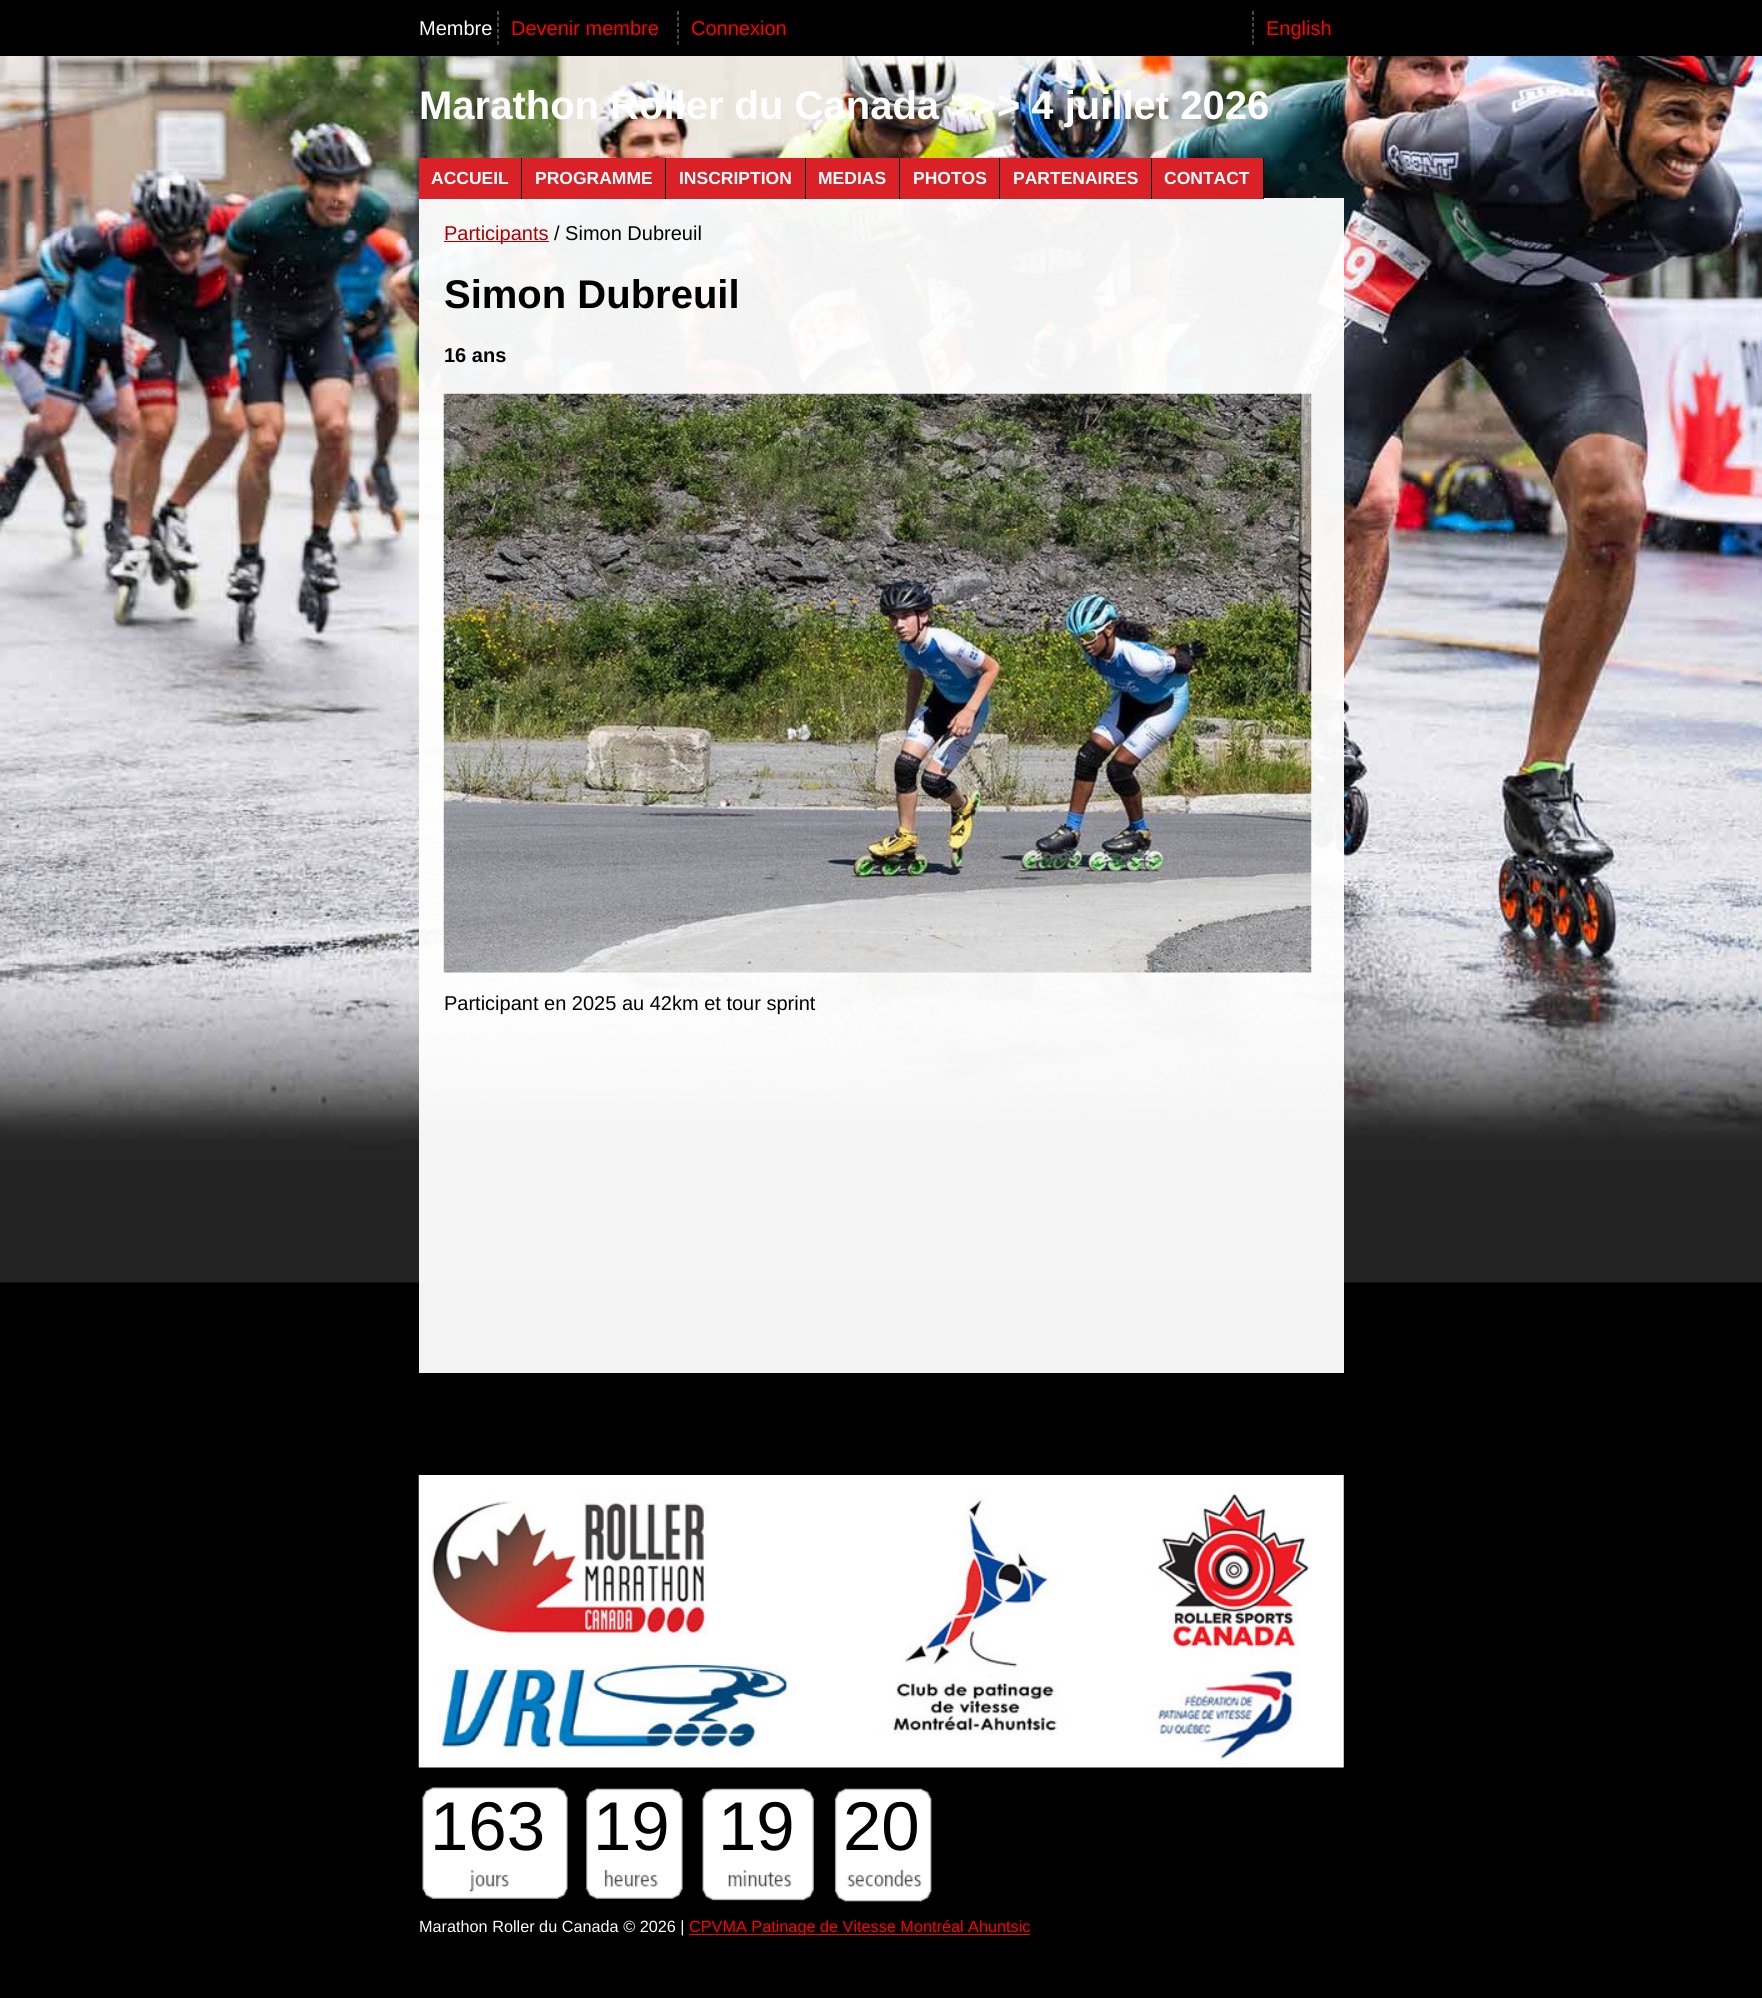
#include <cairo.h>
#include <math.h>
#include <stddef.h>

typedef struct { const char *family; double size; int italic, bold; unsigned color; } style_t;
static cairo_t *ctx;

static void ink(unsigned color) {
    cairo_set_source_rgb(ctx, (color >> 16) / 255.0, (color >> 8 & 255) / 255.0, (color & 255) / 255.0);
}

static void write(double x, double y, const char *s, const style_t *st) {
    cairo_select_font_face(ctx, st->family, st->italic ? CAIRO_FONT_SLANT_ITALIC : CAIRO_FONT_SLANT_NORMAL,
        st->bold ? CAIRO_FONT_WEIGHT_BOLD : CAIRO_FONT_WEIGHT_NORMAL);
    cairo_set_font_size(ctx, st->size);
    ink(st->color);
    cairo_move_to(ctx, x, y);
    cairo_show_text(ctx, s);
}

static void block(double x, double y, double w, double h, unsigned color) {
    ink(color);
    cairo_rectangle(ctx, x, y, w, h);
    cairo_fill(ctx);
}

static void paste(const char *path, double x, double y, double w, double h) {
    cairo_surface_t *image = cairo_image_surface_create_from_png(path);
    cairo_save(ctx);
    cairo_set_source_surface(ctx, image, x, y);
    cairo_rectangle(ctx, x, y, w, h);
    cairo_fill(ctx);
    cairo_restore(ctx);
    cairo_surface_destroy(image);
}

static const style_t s1 = {"Liberation Sans", 20, 0, 0, 0xffffff};
static const style_t s2 = {"Liberation Sans", 20, 0, 0, 0xff0000};
static const style_t s3 = {"Liberation Sans", 40, 0, 1, 0xffffff};
static const style_t s4 = {"Liberation Sans", 17.5, 0, 1, 0xffffff};
static const style_t s5 = {"Liberation Sans", 20, 0, 0, 0xaa0000};
static const style_t s6 = {"Liberation Sans", 20, 0, 0, 0x000000};
static const style_t s7 = {"Liberation Sans", 40, 0, 1, 0x000000};
static const style_t s8 = {"Liberation Sans", 20, 0, 1, 0x000000};
static const style_t s9 = {"Liberation Sans", 69, 0, 0, 0x000000};
static const style_t s10 = {"Liberation Sans", 16.25, 0, 0, 0xffffff};
static const style_t s11 = {"Liberation Sans", 16.25, 0, 0, 0xff0000};

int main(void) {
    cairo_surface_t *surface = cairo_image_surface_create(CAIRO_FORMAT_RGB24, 1762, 1998);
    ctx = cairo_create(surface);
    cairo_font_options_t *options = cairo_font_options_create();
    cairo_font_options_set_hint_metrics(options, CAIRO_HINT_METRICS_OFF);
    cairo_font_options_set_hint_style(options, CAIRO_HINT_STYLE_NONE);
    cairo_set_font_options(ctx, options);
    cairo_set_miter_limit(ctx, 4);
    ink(0x000000);
    cairo_paint(ctx);
    paste("pic1.png", 0, 56, 1762, 1227);
    write(419, 35, "Membre", &s1);
    write(511, 35, "Devenir membre", &s2);
    cairo_new_path(ctx);
    cairo_move_to(ctx, 498, 11);
    cairo_line_to(ctx, 498, 45);
    ink(0x777777);
    cairo_set_line_width(ctx, 1.2);
    cairo_set_dash(ctx, (double[]){3.75, 2.25}, 2, 0);
    cairo_stroke(ctx);
    write(691, 35, "Connexion", &s2);
    cairo_new_path(ctx);
    cairo_move_to(ctx, 678, 11);
    cairo_line_to(ctx, 678, 45);
    ink(0x777777);
    cairo_stroke(ctx);
    write(1266, 35, "English", &s2);
    cairo_new_path(ctx);
    cairo_move_to(ctx, 1253, 11);
    cairo_line_to(ctx, 1253, 45);
    ink(0x777777);
    cairo_stroke(ctx);
    write(419, 119, "Marathon Roller du Canada >>> 4 juillet 2026", &s3);
    cairo_set_source_rgba(ctx, 1, 1, 1, 0.95);
    cairo_rectangle(ctx, 419, 198, 925, 1175);
    cairo_fill(ctx);
    block(419, 158, 246, 41, 0xda2127);
    block(521, 158, 1, 41, 0x000000);
    write(431, 184, "ACCUEIL", &s4);
    block(665, 158, 1, 41, 0x000000);
    write(535, 184, "PROGRAMME", &s4);
    block(666, 158, 139, 41, 0xda2127);
    block(805, 158, 1, 41, 0x000000);
    write(679, 184, "INSCRIPTION", &s4);
    block(806, 158, 93, 41, 0xda2127);
    block(899, 158, 1, 41, 0x000000);
    write(818, 184, "MEDIAS", &s4);
    block(900, 158, 99, 41, 0xda2127);
    block(999, 158, 1, 41, 0x000000);
    write(913, 184, "PHOTOS", &s4);
    block(1000, 158, 263, 41, 0xda2127);
    block(1151, 158, 1, 41, 0x000000);
    write(1013, 184, "PARTENAIRES", &s4);
    block(1263, 158, 1, 41, 0x000000);
    write(1164, 184, "CONTACT", &s4);
    block(444, 241, 105, 1, 0xaa0000);
    write(444, 240, "Participants", &s5);
    write(554, 240, "/ Simon Dubreuil", &s6);
    write(444, 308, "Simon Dubreuil", &s7);
    write(444, 362, "16 ans", &s8);
    paste("pic2.png", 443, 393, 869, 580);
    write(444, 1010, "Participant en 2025 au 42km et tour sprint", &s6);
    paste("pic3.png", 418, 1475, 926, 293);
    paste("pic4.png", 422, 1787, 510, 115);
    write(430, 1850, "163", &s9);
    write(593, 1850, "19", &s9);
    write(718, 1850, "19", &s9);
    write(843, 1850, "20", &s9);
    write(419, 1932, "Marathon Roller du Canada © 2026 |", &s10);
    block(689, 1934, 341, 1, 0xff0000);
    write(689, 1932, "CPVMA Patinage de Vitesse Montréal Ahuntsic", &s11);
    cairo_surface_write_to_png(surface, "screenshot.png");
    cairo_font_options_destroy(options);
    cairo_destroy(ctx);
    cairo_surface_destroy(surface);
    return 0;
}
